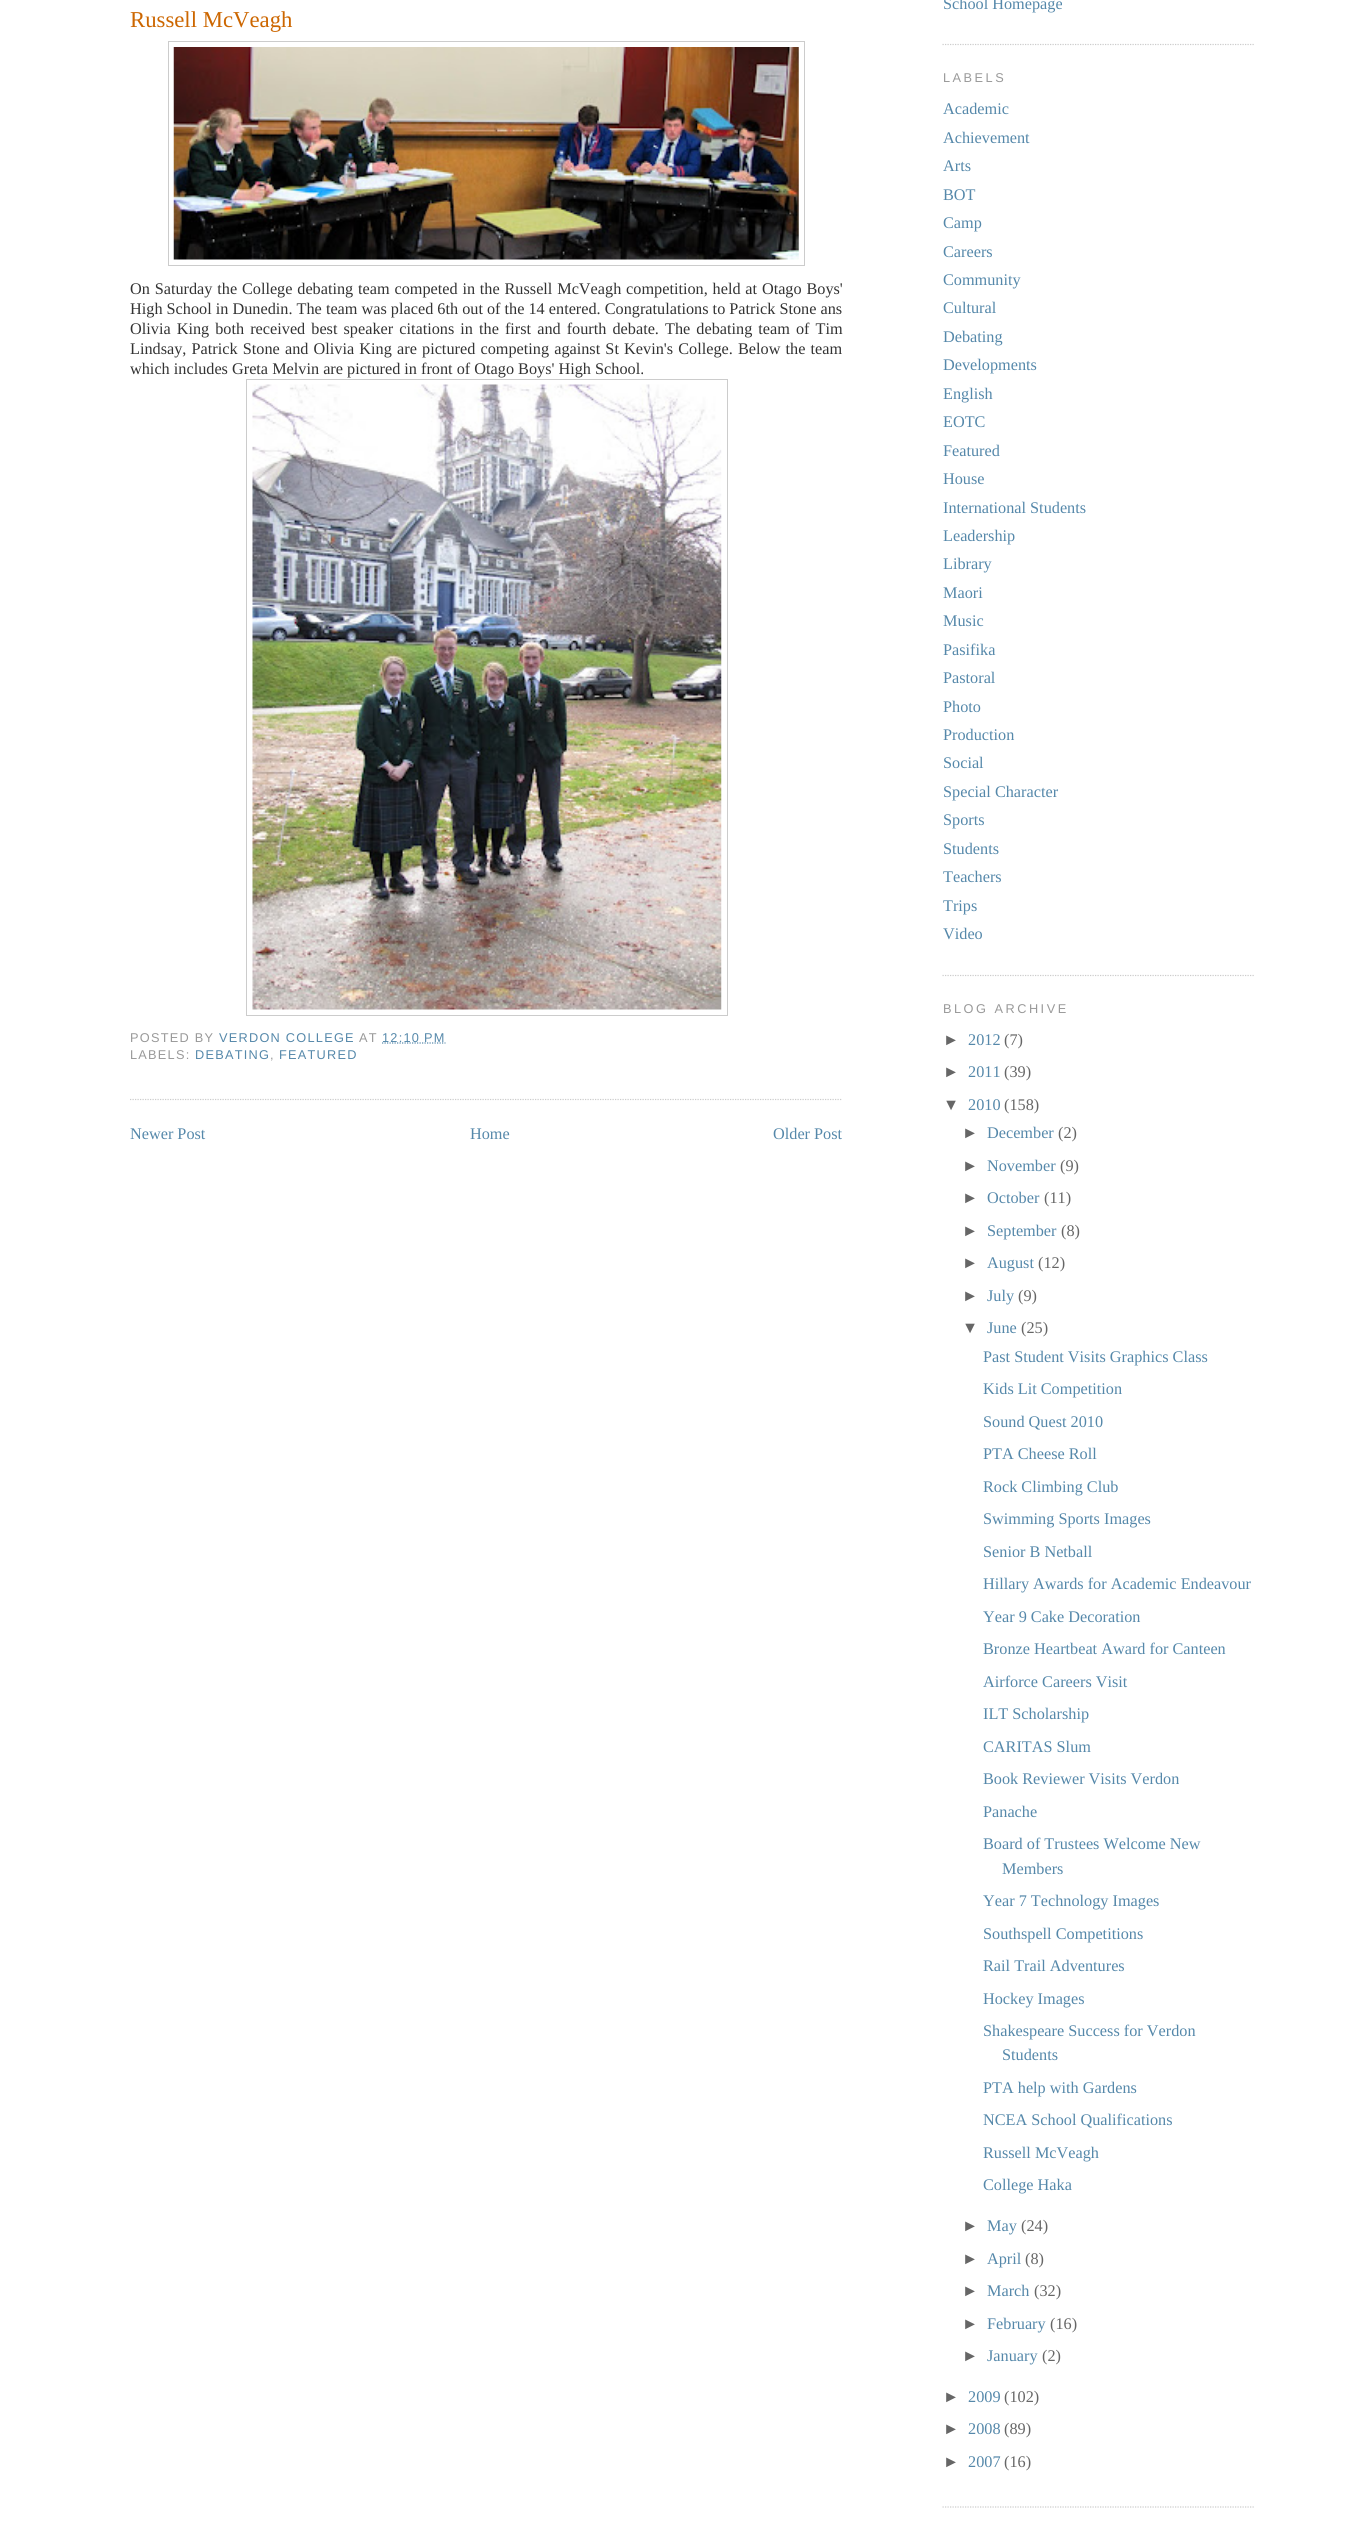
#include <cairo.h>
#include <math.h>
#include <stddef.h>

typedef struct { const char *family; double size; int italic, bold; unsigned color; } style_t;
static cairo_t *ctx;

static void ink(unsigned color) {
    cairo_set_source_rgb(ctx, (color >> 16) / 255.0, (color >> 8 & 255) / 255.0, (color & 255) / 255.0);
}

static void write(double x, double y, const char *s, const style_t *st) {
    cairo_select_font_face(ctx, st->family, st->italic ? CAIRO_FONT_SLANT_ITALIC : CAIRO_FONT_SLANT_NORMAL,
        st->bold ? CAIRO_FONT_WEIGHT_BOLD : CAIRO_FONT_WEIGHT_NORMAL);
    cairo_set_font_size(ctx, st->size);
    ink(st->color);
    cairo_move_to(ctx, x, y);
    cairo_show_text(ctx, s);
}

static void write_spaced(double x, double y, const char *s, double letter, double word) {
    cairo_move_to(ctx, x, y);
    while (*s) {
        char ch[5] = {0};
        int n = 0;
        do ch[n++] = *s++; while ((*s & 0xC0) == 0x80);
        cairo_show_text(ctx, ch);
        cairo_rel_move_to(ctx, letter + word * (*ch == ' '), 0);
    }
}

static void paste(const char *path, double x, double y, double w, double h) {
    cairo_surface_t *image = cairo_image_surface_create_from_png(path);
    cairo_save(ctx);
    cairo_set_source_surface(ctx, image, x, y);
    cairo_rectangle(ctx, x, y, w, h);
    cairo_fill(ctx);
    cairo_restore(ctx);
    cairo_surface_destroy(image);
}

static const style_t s1 = {"Liberation Serif", 22.75, 0, 0, 0xcc6600};
static const style_t s2 = {"Liberation Serif", 16.25, 0, 0, 0x333333};
static const style_t s3 = {"Liberation Serif", 16.25, 0, 0, 0x5588aa};
static const style_t s4 = {"Liberation Sans", 16.25, 0, 0, 0x666666};
static const style_t s5 = {"Liberation Serif", 16.25, 0, 0, 0x666666};

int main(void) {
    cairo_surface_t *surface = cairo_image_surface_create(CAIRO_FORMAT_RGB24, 1360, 2525);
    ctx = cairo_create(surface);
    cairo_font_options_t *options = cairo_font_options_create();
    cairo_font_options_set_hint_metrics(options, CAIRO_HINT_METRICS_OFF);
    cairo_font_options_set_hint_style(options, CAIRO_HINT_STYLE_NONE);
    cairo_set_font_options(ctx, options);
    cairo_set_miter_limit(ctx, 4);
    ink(0xffffff);
    cairo_paint(ctx);
    cairo_new_path(ctx);
    cairo_move_to(ctx, 130, 1099.5);
    cairo_line_to(ctx, 842.5, 1099.5);
    ink(0xcccccc);
    cairo_set_line_width(ctx, 1.2);
    cairo_set_dash(ctx, (double[]){1.25, 1.25}, 2, 0);
    cairo_stroke(ctx);
    write(130, 27, "Russell McVeagh", &s1);
    cairo_rectangle(ctx, 168.5, 41.5, 636, 224);
    ink(0xcccccc);
    cairo_set_line_width(ctx, 1);
    cairo_set_dash(ctx, NULL, 0, 0);
    cairo_stroke(ctx);
    paste("pic1.png", 173, 47, 626, 213);
    cairo_set_font_size(ctx, 16.25);
    ink(0x333333);
    write_spaced(130, 294, "On Saturday the College debating team competed in the Russell McVeagh competition, held at Otago Boys'", 0, 0.75);
    write(130, 314, "High School in Dunedin. The team was placed 6th out of the 14 entered. Congratulations to Patrick Stone ans", &s2);
    write_spaced(130, 334, "Olivia King both received best speaker citations in the first and fourth debate. The debating team of Tim", 0, 2);
    write_spaced(130, 354, "Lindsay, Patrick Stone and Olivia King are pictured competing against St Kevin's College. Below the team", 0, 1.1);
    write(130, 374, "which includes Greta Melvin are pictured in front of Otago Boys' High School.", &s2);
    cairo_rectangle(ctx, 246.5, 379.5, 481, 636);
    ink(0xcccccc);
    cairo_stroke(ctx);
    paste("pic2.png", 252, 384, 470, 626);
    cairo_select_font_face(ctx, "Liberation Sans", CAIRO_FONT_SLANT_NORMAL, CAIRO_FONT_WEIGHT_NORMAL);
    cairo_set_font_size(ctx, 12.75);
    ink(0x999999);
    write_spaced(130, 1042, "POSTED BY", 1.25, 0);
    ink(0x5588aa);
    write_spaced(219, 1042, "VERDON COLLEGE", 1.25, 0);
    ink(0x999999);
    write_spaced(359, 1042, "AT", 1.25, 0);
    cairo_new_path(ctx);
    cairo_move_to(ctx, 382, 1043);
    cairo_line_to(ctx, 445.5, 1043);
    ink(0x5588aa);
    cairo_set_line_width(ctx, 1.2);
    cairo_set_dash(ctx, (double[]){1.25, 1.25}, 2, 0);
    cairo_stroke(ctx);
    write_spaced(382, 1042, "12:10 PM", 1.25, 0);
    ink(0x999999);
    write_spaced(130, 1059, "LABELS:", 1.25, 0);
    ink(0x5588aa);
    write_spaced(195, 1059, "DEBATING", 1.25, 0);
    ink(0x999999);
    write_spaced(270, 1059, ",", 1.25, 0);
    ink(0x5588aa);
    write_spaced(279, 1059, "FEATURED", 1.25, 0);
    write(130, 1139, "Newer Post", &s3);
    write(470, 1139, "Home", &s3);
    write(773, 1139, "Older Post", &s3);
    cairo_new_path(ctx);
    cairo_move_to(ctx, 942.5, 44.5);
    cairo_line_to(ctx, 1255, 44.5);
    ink(0xcccccc);
    cairo_stroke(ctx);
    write(943, 9, "School Homepage", &s3);
    cairo_new_path(ctx);
    cairo_move_to(ctx, 942.5, 975.5);
    cairo_line_to(ctx, 1255, 975.5);
    ink(0xcccccc);
    cairo_stroke(ctx);
    cairo_select_font_face(ctx, "Liberation Sans", CAIRO_FONT_SLANT_NORMAL, CAIRO_FONT_WEIGHT_NORMAL);
    cairo_set_font_size(ctx, 12.75);
    ink(0x999999);
    write_spaced(943, 82, "LABELS", 2.5, 0);
    write(943, 114, "Academic", &s3);
    write(943, 143, "Achievement", &s3);
    write(943, 171, "Arts", &s3);
    write(943, 200, "BOT", &s3);
    write(943, 228, "Camp", &s3);
    write(943, 257, "Careers", &s3);
    write(943, 285, "Community", &s3);
    write(943, 313, "Cultural", &s3);
    write(943, 342, "Debating", &s3);
    write(943, 370, "Developments", &s3);
    write(943, 399, "English", &s3);
    write(943, 427, "EOTC", &s3);
    write(943, 456, "Featured", &s3);
    write(943, 484, "House", &s3);
    write(943, 513, "International Students", &s3);
    write(943, 541, "Leadership", &s3);
    write(943, 569, "Library", &s3);
    write(943, 598, "Maori", &s3);
    write(943, 626, "Music", &s3);
    write(943, 655, "Pasifika", &s3);
    write(943, 683, "Pastoral", &s3);
    write(943, 712, "Photo", &s3);
    write(943, 740, "Production", &s3);
    write(943, 768, "Social", &s3);
    write(943, 797, "Special Character", &s3);
    write(943, 825, "Sports", &s3);
    write(943, 854, "Students", &s3);
    cairo_save(ctx);
    cairo_rectangle(ctx, 943, 0, 312, 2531);
    cairo_clip(ctx);
    write(943, 882, "Teachers", &s3);
    write(943, 911, "Trips", &s3);
    cairo_restore(ctx);
    write(943, 939, "Video", &s3);
    cairo_new_path(ctx);
    cairo_move_to(ctx, 942.5, 2507);
    cairo_line_to(ctx, 1255, 2507);
    ink(0xcccccc);
    cairo_stroke(ctx);
    cairo_select_font_face(ctx, "Liberation Sans", CAIRO_FONT_SLANT_NORMAL, CAIRO_FONT_WEIGHT_NORMAL);
    cairo_set_font_size(ctx, 12.75);
    ink(0x999999);
    write_spaced(943, 1013, "BLOG ARCHIVE", 2.5, 0);
    write(943, 1045, "►", &s4);
    write(968, 1045, "2012", &s3);
    write(1004, 1045, "(7)", &s5);
    write(943, 1077, "►", &s4);
    write(968, 1077, "2011", &s3);
    write(1004, 1077, "(39)", &s5);
    write(943, 1110, "▼", &s4);
    write(968, 1110, "2010", &s3);
    write(1004, 1110, "(158)", &s5);
    write(962, 1138, "►", &s4);
    write(987, 1138, "December", &s3);
    write(1058, 1138, "(2)", &s5);
    write(962, 1171, "►", &s4);
    write(987, 1171, "November", &s3);
    write(1060, 1171, "(9)", &s5);
    write(962, 1203, "►", &s4);
    write(987, 1203, "October", &s3);
    write(1044, 1203, "(11)", &s5);
    write(962, 1236, "►", &s4);
    write(987, 1236, "September", &s3);
    write(1061, 1236, "(8)", &s5);
    write(962, 1268, "►", &s4);
    write(987, 1268, "August", &s3);
    write(1038, 1268, "(12)", &s5);
    write(962, 1301, "►", &s4);
    write(987, 1301, "July", &s3);
    write(1018, 1301, "(9)", &s5);
    write(962, 1333, "▼", &s4);
    write(987, 1333, "June", &s3);
    write(1021, 1333, "(25)", &s5);
    write(983, 1362, "Past Student Visits Graphics Class", &s3);
    write(983, 1394, "Kids Lit Competition", &s3);
    write(983, 1427, "Sound Quest 2010", &s3);
    write(983, 1459, "PTA Cheese Roll", &s3);
    write(983, 1492, "Rock Climbing Club", &s3);
    write(983, 1524, "Swimming Sports Images", &s3);
    write(983, 1557, "Senior B Netball", &s3);
    write(983, 1589, "Hillary Awards for Academic Endeavour", &s3);
    write(983, 1622, "Year 9 Cake Decoration", &s3);
    write(983, 1654, "Bronze Heartbeat Award for Canteen", &s3);
    write(983, 1687, "Airforce Careers Visit", &s3);
    write(983, 1719, "ILT Scholarship", &s3);
    write(983, 1752, "CARITAS Slum", &s3);
    write(983, 1784, "Book Reviewer Visits Verdon", &s3);
    write(983, 1817, "Panache", &s3);
    write(983, 1849, "Board of Trustees Welcome New", &s3);
    write(1002, 1874, "Members", &s3);
    write(983, 1906, "Year 7 Technology Images", &s3);
    write(983, 1939, "Southspell Competitions", &s3);
    write(983, 1971, "Rail Trail Adventures", &s3);
    write(983, 2004, "Hockey Images", &s3);
    write(983, 2036, "Shakespeare Success for Verdon", &s3);
    write(1002, 2060, "Students", &s3);
    write(983, 2093, "PTA help with Gardens", &s3);
    write(983, 2125, "NCEA School Qualifications", &s3);
    write(983, 2158, "Russell McVeagh", &s3);
    write(983, 2190, "College Haka", &s3);
    write(962, 2231, "►", &s4);
    write(987, 2231, "May", &s3);
    write(1021, 2231, "(24)", &s5);
    write(962, 2264, "►", &s4);
    write(987, 2264, "April", &s3);
    write(1025, 2264, "(8)", &s5);
    write(962, 2296, "►", &s4);
    write(987, 2296, "March", &s3);
    write(1034, 2296, "(32)", &s5);
    write(962, 2329, "►", &s4);
    write(987, 2329, "February", &s3);
    write(1050, 2329, "(16)", &s5);
    write(962, 2361, "►", &s4);
    write(987, 2361, "January", &s3);
    write(1042, 2361, "(2)", &s5);
    write(943, 2402, "►", &s4);
    write(968, 2402, "2009", &s3);
    write(1004, 2402, "(102)", &s5);
    write(943, 2434, "►", &s4);
    write(968, 2434, "2008", &s3);
    write(1004, 2434, "(89)", &s5);
    write(943, 2467, "►", &s4);
    write(968, 2467, "2007", &s3);
    write(1004, 2467, "(16)", &s5);
    cairo_surface_write_to_png(surface, "screenshot.png");
    cairo_font_options_destroy(options);
    cairo_destroy(ctx);
    cairo_surface_destroy(surface);
    return 0;
}
